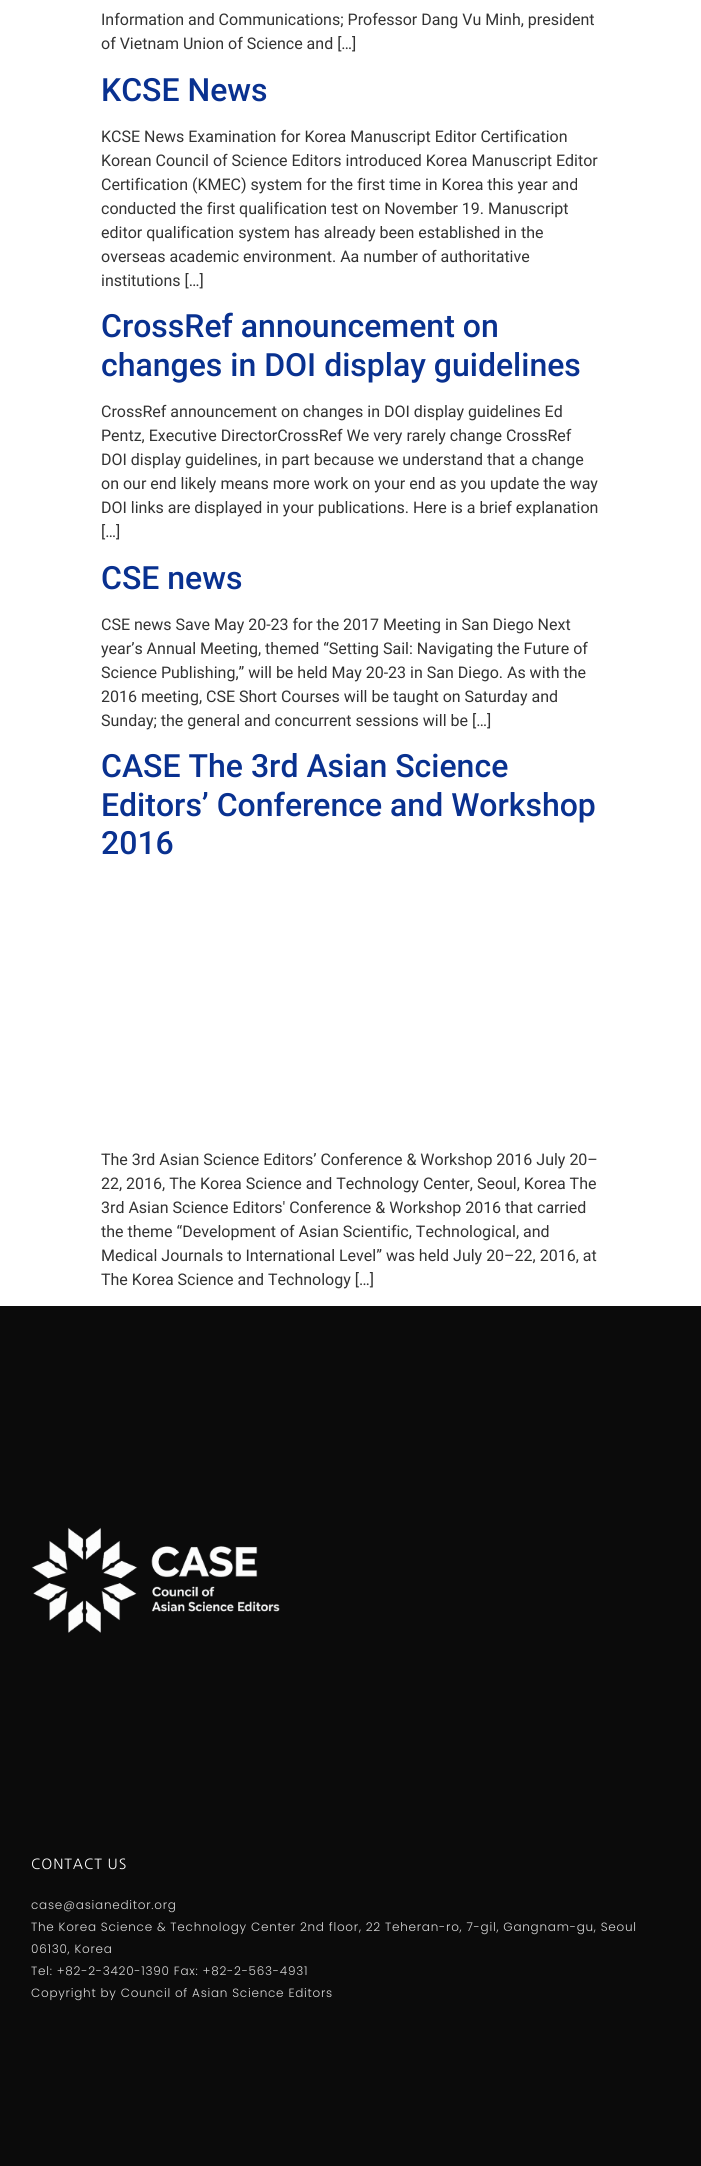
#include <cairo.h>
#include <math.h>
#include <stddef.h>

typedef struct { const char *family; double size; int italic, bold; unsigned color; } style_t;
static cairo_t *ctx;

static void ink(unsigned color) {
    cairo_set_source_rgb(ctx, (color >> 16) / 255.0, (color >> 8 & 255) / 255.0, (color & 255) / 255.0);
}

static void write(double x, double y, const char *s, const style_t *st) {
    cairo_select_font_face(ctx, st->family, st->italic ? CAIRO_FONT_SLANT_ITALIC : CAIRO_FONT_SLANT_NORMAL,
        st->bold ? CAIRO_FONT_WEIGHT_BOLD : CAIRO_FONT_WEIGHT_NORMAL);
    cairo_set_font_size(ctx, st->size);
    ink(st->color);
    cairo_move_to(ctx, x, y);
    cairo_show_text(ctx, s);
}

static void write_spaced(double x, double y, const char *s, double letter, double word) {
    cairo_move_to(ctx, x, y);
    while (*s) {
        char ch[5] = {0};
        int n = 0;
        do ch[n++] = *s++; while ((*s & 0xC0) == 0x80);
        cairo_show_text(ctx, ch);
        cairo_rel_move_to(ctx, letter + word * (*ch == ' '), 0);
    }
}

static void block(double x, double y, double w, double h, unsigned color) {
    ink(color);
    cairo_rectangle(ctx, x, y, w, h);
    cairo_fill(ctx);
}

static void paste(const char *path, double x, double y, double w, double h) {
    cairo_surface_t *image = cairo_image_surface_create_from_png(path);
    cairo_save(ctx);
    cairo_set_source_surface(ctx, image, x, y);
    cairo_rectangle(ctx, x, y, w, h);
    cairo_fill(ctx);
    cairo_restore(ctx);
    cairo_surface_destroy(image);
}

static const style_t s1 = {"Roboto", 16, 0, 0, 0x333333};
static const style_t s2 = {"Roboto Medium", 32, 0, 0, 0x093190};

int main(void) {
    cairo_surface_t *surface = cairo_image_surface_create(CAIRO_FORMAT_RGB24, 701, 2166);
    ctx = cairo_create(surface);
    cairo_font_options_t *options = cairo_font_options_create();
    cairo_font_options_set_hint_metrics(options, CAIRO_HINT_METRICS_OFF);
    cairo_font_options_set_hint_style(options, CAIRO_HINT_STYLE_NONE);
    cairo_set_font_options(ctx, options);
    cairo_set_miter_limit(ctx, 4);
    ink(0xffffff);
    cairo_paint(ctx);
    write(101, 25, "Information and Communications; Professor Dang Vu Minh, president", &s1);
    write(101, 49, "of Vietnam Union of Science and […]", &s1);
    write(101, 101, "KCSE News", &s2);
    write(101, 142, "KCSE News Examination for Korea Manuscript Editor Certification", &s1);
    write(101, 166, "Korean Council of Science Editors introduced Korea Manuscript Editor", &s1);
    write(101, 190, "Certification (KMEC) system for the first time in Korea this year and", &s1);
    write(101, 214, "conducted the first qualification test on November 19. Manuscript", &s1);
    write(101, 238, "editor qualification system has already been established in the", &s1);
    write(101, 262, "overseas academic environment. Aa number of authoritative", &s1);
    write(101, 286, "institutions […]", &s1);
    write(101, 337, "CrossRef announcement on", &s2);
    write(101, 376, "changes in DOI display guidelines", &s2);
    write(101, 417, "CrossRef announcement on changes in DOI display guidelines Ed", &s1);
    write(101, 441, "Pentz, Executive DirectorCrossRef We very rarely change CrossRef", &s1);
    write(101, 465, "DOI display guidelines, in part because we understand that a change", &s1);
    write(101, 489, "on our end likely means more work on your end as you update the way", &s1);
    write(101, 513, "DOI links are displayed in your publications. Here is a brief explanation", &s1);
    write(101, 537, "[…]", &s1);
    write(101, 589, "CSE news", &s2);
    write(101, 630, "CSE news Save May 20-23 for the 2017 Meeting in San Diego Next", &s1);
    write(101, 654, "year’s Annual Meeting, themed “Setting Sail: Navigating the Future of", &s1);
    write(101, 678, "Science Publishing,” will be held May 20-23 in San Diego. As with the", &s1);
    write(101, 702, "2016 meeting, CSE Short Courses will be taught on Saturday and", &s1);
    write(101, 726, "Sunday; the general and concurrent sessions will be […]", &s1);
    write(101, 777, "CASE The 3rd Asian Science", &s2);
    write(101, 816, "Editors’ Conference and Workshop", &s2);
    write(101, 854, "2016", &s2);
    write(101, 1165, "The 3rd Asian Science Editors’ Conference & Workshop 2016 July 20–", &s1);
    write(101, 1189, "22, 2016, The Korea Science and Technology Center, Seoul, Korea The", &s1);
    write(101, 1213, "3rd Asian Science Editors′ Conference & Workshop 2016 that carried", &s1);
    write(101, 1237, "the theme “Development of Asian Scientific, Technological, and", &s1);
    write(101, 1261, "Medical Journals to International Level” was held July 20–22, 2016, at", &s1);
    write(101, 1285, "The Korea Science and Technology […]", &s1);
    block(0, 1306, 701, 860, 0x0b0b0b);
    paste("pic1.png", 31, 1527, 249, 106);
    cairo_select_font_face(ctx, "NanumGothic", CAIRO_FONT_SLANT_NORMAL, CAIRO_FONT_WEIGHT_NORMAL);
    cairo_set_font_size(ctx, 14);
    ink(0xffffff);
    write_spaced(31, 1869, "CONTACT US", 0.9, 0);
    cairo_select_font_face(ctx, "Poppins Light", CAIRO_FONT_SLANT_NORMAL, CAIRO_FONT_WEIGHT_NORMAL);
    cairo_set_font_size(ctx, 12);
    ink(0xdadada);
    write_spaced(31, 1909, "case@asianeditor.org", 0.75, 0);
    write_spaced(31, 1931, "The Korea Science & Technology Center 2nd floor, 22 Teheran-ro, 7-gil, Gangnam-gu, Seoul", 0.75, 0);
    write_spaced(31, 1953, "06130, Korea", 0.75, 0);
    write_spaced(31, 1975, "Tel: +82-2-3420-1390 Fax: +82-2-563-4931", 0.75, 0);
    write_spaced(31, 1997, "Copyright by Council of Asian Science Editors", 0.75, 0);
    cairo_surface_write_to_png(surface, "screenshot.png");
    cairo_font_options_destroy(options);
    cairo_destroy(ctx);
    cairo_surface_destroy(surface);
    return 0;
}
